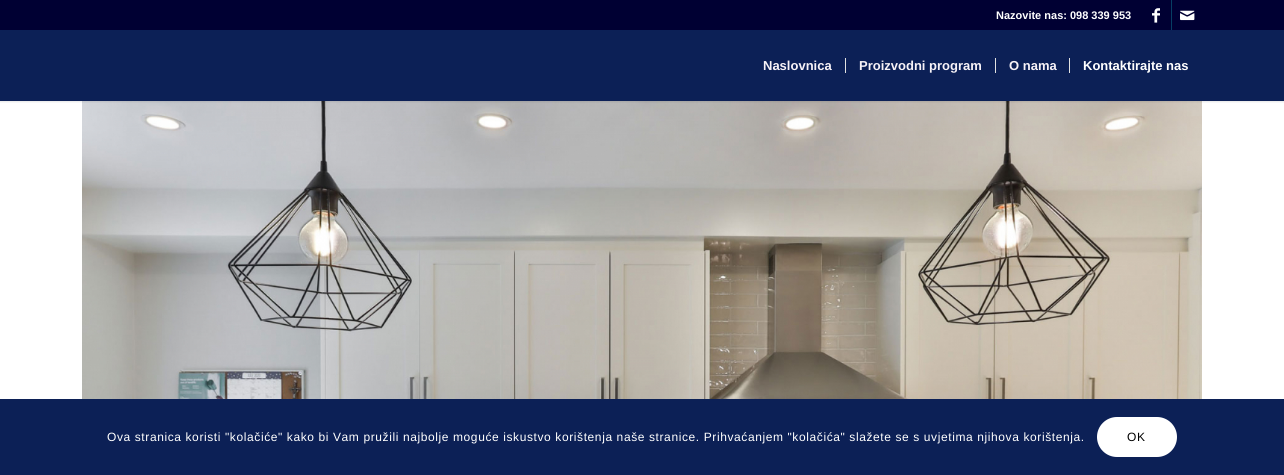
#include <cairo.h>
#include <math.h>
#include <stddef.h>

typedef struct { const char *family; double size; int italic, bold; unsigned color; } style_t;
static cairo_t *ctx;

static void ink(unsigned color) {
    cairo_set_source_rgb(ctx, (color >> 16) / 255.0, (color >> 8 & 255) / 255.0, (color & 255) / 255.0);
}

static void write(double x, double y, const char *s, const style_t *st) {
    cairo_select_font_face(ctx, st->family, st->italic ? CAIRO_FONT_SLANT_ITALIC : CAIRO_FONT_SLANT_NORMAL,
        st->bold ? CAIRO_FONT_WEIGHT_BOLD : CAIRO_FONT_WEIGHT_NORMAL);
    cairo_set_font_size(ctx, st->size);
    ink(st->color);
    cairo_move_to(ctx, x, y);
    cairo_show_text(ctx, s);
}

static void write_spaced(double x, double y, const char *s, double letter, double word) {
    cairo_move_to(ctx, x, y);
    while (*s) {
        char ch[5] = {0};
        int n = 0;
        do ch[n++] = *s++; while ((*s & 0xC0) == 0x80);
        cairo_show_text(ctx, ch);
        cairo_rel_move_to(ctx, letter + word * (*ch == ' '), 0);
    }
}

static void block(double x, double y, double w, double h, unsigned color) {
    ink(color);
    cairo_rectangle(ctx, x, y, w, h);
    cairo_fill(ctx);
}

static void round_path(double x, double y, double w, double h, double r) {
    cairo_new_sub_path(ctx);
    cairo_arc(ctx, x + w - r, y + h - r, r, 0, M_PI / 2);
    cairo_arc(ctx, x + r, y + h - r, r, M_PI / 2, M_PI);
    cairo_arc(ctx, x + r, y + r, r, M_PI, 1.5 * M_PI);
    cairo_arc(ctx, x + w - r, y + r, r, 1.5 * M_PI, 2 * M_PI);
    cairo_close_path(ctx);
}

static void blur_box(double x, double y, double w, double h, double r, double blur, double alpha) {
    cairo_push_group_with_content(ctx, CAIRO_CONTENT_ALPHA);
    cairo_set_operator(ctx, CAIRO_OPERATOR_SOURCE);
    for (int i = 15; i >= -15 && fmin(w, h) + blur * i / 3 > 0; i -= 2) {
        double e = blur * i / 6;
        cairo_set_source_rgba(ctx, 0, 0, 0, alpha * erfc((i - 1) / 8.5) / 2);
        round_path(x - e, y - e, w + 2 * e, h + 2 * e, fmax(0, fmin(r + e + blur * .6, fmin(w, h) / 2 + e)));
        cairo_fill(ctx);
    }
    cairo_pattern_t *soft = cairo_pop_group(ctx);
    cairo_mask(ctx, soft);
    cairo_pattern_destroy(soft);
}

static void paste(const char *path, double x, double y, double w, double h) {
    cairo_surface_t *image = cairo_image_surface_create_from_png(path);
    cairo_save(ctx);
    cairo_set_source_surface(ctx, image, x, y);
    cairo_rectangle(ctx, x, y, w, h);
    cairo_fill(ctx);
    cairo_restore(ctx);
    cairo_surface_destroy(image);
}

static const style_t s1 = {"Liberation Sans", 11, 0, 1, 0xffffff};
static const style_t s2 = {"Liberation Sans", 13, 0, 1, 0xf7f2f7};
static const style_t s3 = {"Liberation Sans", 13, 0, 1, 0xffffff};

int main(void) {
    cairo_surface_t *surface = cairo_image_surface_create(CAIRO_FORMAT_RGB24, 1284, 475);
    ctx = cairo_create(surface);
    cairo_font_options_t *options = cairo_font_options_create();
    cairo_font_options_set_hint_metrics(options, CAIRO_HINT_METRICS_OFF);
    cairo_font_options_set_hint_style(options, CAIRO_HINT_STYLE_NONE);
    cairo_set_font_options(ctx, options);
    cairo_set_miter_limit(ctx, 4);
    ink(0x0c2056);
    cairo_paint(ctx);
    block(0, 101, 1284, 298, 0xffffff);
    paste("pic3.png", 82, 101, 1120, 298);
    cairo_save(ctx);
    cairo_rectangle(ctx, 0, 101, 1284, 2);
    cairo_clip(ctx);
    ink(0x000000);
    blur_box(-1, -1, 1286, 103, 0, 1, 0.1);
    cairo_restore(ctx);
    block(0, 0, 1284, 30, 0x000033);
    write(996, 19, "Nazovite nas: 098 339 953", &s1);
    block(1171, 0, 1, 30, 0x073e63);
    paste("pic1.png", 1152, 8, 8, 15);
    paste("pic2.png", 1180, 10, 15, 11);
    write(763, 70, "Naslovnica", &s2);
    write(859, 70, "Proizvodni program", &s2);
    block(845, 58, 1, 15, 0xe1e1e1);
    write(1009, 70, "O nama", &s2);
    block(995, 58, 1, 15, 0xe1e1e1);
    write(1083, 70, "Kontaktirajte nas", &s3);
    block(1069, 58, 1, 15, 0xe1e1e1);
    cairo_select_font_face(ctx, "Liberation Sans", CAIRO_FONT_SLANT_NORMAL, CAIRO_FONT_WEIGHT_NORMAL);
    cairo_set_font_size(ctx, 12);
    ink(0xffffff);
    write_spaced(107, 441, "Ova stranica koristi \"kolačiće\" kako bi Vam pružili najbolje moguće iskustvo korištenja naše stranice. Prihvaćanjem \"kolačića\" slažete se s uvjetima njihova korištenja.", 0.6, 0);
    round_path(1097, 417, 80, 40, 20);
    cairo_fill(ctx);
    ink(0x000000);
    write_spaced(1127, 441, "OK", 0.6, 0);
    cairo_surface_write_to_png(surface, "screenshot.png");
    cairo_font_options_destroy(options);
    cairo_destroy(ctx);
    cairo_surface_destroy(surface);
    return 0;
}
